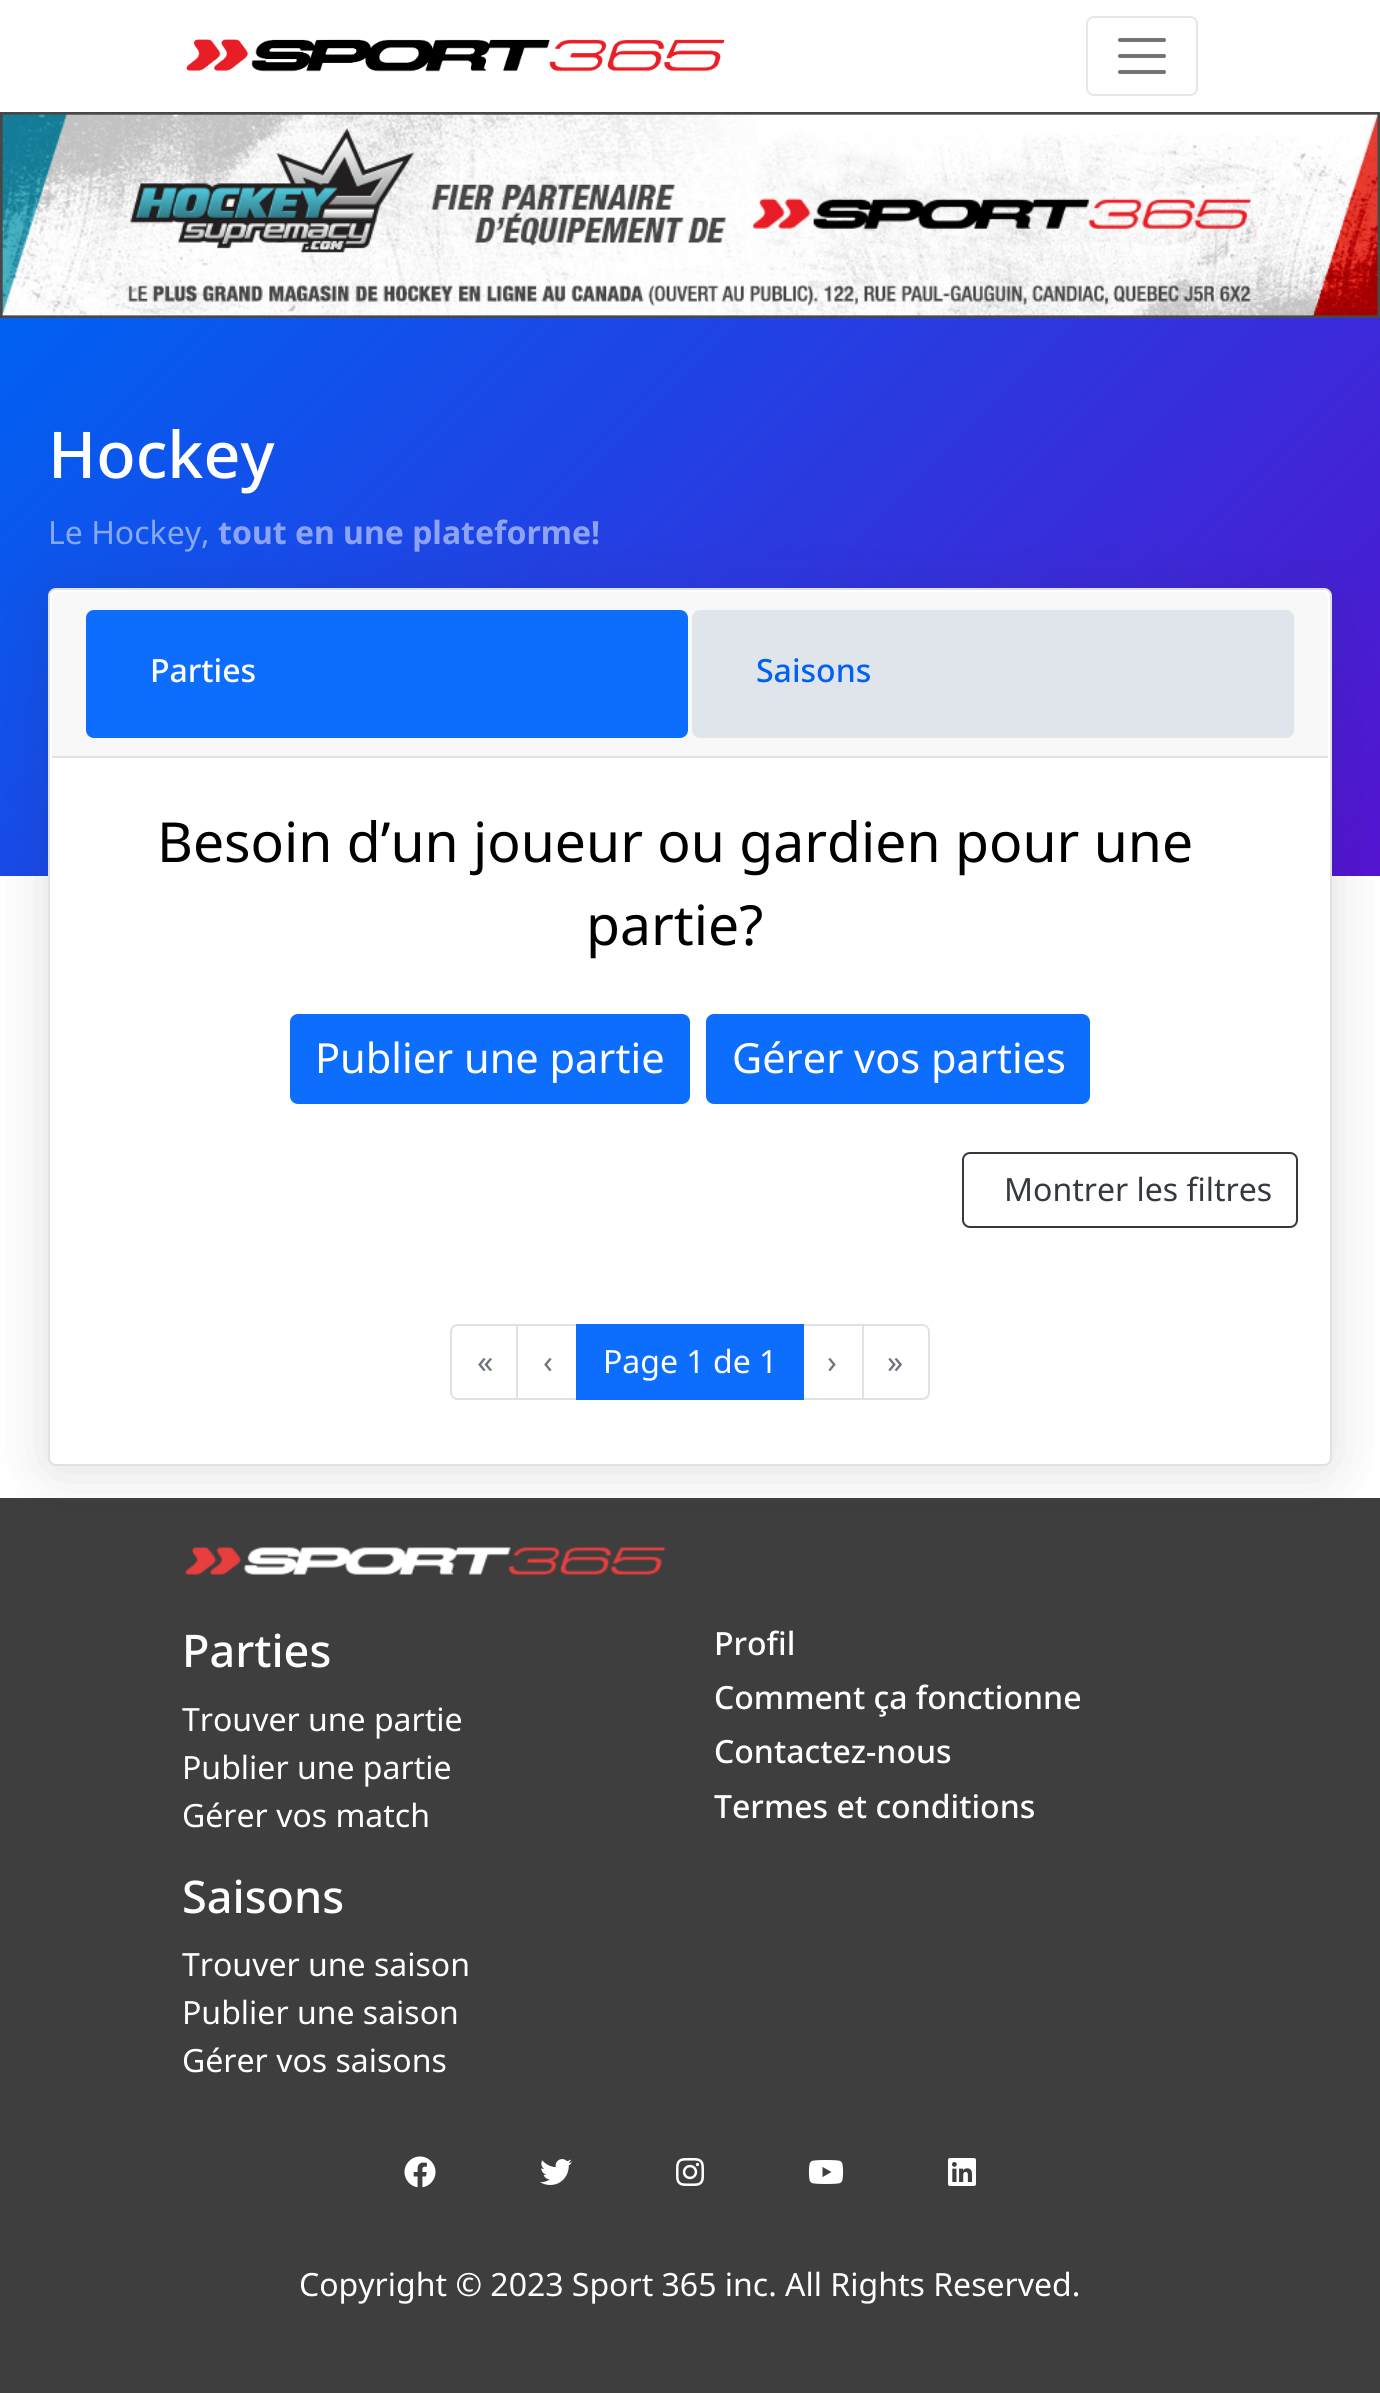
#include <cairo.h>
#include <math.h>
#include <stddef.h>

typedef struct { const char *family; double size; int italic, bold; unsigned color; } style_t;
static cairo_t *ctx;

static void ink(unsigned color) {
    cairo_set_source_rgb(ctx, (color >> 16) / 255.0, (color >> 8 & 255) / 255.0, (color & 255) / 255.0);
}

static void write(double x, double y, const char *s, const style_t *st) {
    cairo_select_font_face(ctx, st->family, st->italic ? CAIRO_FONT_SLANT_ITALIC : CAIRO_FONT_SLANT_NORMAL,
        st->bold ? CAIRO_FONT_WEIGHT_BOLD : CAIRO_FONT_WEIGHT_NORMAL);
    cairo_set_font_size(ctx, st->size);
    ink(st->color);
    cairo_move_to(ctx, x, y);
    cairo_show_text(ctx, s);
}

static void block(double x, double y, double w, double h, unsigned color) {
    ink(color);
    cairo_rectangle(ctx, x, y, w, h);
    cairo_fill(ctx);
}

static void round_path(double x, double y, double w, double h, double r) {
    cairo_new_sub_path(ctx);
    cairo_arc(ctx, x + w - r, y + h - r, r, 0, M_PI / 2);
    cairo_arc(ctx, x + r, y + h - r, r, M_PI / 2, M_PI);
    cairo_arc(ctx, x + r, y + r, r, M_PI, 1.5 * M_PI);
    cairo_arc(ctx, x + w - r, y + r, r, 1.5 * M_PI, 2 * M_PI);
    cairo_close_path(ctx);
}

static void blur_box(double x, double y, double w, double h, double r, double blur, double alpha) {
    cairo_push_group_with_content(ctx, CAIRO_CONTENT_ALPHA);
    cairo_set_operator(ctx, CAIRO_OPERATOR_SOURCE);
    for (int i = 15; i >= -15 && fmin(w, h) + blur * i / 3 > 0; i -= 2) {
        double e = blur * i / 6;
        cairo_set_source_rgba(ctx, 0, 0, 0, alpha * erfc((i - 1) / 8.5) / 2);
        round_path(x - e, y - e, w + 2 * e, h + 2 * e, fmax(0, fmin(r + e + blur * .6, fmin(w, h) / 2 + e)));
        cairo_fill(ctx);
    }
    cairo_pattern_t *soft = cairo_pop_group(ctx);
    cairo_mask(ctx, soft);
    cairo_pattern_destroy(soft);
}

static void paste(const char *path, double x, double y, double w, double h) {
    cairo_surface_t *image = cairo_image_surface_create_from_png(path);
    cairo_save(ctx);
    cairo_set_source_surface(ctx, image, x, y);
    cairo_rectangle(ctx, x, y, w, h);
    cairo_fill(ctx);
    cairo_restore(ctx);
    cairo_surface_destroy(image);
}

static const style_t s1 = {"Noto Sans Medium", 64.5, 0, 0, 0xffffff};
static const style_t s2 = {"Noto Sans", 32, 0, 0, 0x87a9f5};
static const style_t s3 = {"Noto Sans", 32, 0, 1, 0x8da3f3};
static const style_t s4 = {"Noto Sans Medium", 32, 0, 0, 0xffffff};
static const style_t s5 = {"Noto Sans Medium", 32, 0, 0, 0x0061f2};
static const style_t s6 = {"Noto Sans", 55.25, 0, 0, 0x000000};
static const style_t s7 = {"Noto Sans", 41.5, 0, 0, 0xffffff};
static const style_t s8 = {"Noto Sans", 32, 0, 0, 0x343a40};
static const style_t s9 = {"Noto Sans", 32, 0, 0, 0x6c757d};
static const style_t s10 = {"Noto Sans", 32, 0, 0, 0xffffff};
static const style_t s11 = {"Noto Sans Medium", 45, 0, 0, 0xffffff};

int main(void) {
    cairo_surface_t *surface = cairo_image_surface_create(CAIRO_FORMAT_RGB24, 1380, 2393);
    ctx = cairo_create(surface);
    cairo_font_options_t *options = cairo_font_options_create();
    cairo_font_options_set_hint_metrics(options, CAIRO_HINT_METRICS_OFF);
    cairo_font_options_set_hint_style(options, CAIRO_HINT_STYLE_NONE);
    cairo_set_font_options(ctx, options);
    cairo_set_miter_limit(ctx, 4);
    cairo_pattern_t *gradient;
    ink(0xffffff);
    cairo_paint(ctx);
    paste("pic1.png", 186, 39, 539, 33);
    round_path(1087, 17, 110, 78, 7);
    ink(0xe6e6e6);
    cairo_stroke(ctx);
    cairo_new_path(ctx);
    cairo_move_to(ctx, 1120, 40);
    cairo_line_to(ctx, 1164, 40);
    cairo_move_to(ctx, 1120, 56);
    cairo_line_to(ctx, 1164, 56);
    cairo_move_to(ctx, 1120, 72);
    cairo_line_to(ctx, 1164, 72);
    ink(0x737373);
    cairo_set_line_width(ctx, 4);
    cairo_set_line_cap(ctx, CAIRO_LINE_CAP_ROUND);
    cairo_stroke(ctx);
    paste("pic2.png", 0, 112, 1380, 206);
    gradient = cairo_pattern_create_linear(206, 113, 1175, 1082);
    cairo_pattern_add_color_stop_rgba(gradient, 0, 0, 0.38, 0.949, 1);
    cairo_pattern_add_color_stop_rgba(gradient, 1, 0.329, 0.075, 0.812, 1);
    cairo_set_source(ctx, gradient);
    cairo_pattern_destroy(gradient);
    cairo_rectangle(ctx, 0, 318, 1380, 558);
    cairo_fill(ctx);
    write(48, 478, "Hockey", &s1);
    write(48, 544, "Le Hockey,", &s2);
    write(218, 544, "tout en une plateforme!", &s3);
    block(0, 1498, 1380, 895, 0x3e3e3e);
    paste("pic3.png", 184, 1546, 482, 29);
    ink(0x212832);
    blur_box(48, 592, 1284, 878, 8, 28, 0.15);
    ink(0xffffff);
    round_path(48, 588, 1284, 878, 8);
    cairo_fill(ctx);
    round_path(49, 589, 1282, 876, 7);
    cairo_set_source_rgba(ctx, 0, 0, 0, 0.12);
    cairo_set_line_width(ctx, 2);
    cairo_set_line_cap(ctx, CAIRO_LINE_CAP_BUTT);
    cairo_stroke(ctx);
    ink(0xf8f8f8);
    cairo_new_path(ctx);
    cairo_move_to(ctx, 58, 592);
    cairo_line_to(ctx, 1322, 592);
    cairo_curve_to(ctx, 1325.5, 592, 1328, 594.5, 1328, 598);
    cairo_line_to(ctx, 1328, 758);
    cairo_line_to(ctx, 52, 758);
    cairo_line_to(ctx, 52, 598);
    cairo_curve_to(ctx, 52, 594.5, 54.5, 592, 58, 592);
    cairo_close_path(ctx);
    cairo_fill(ctx);
    block(52, 756, 1276, 2, 0xdee2e6);
    ink(0x0d6efd);
    round_path(86, 610, 602, 128, 8);
    cairo_fill(ctx);
    write(150, 682, "Parties", &s4);
    ink(0xe0e5ec);
    round_path(692, 610, 602, 128, 8);
    cairo_fill(ctx);
    write(756, 682, "Saisons", &s5);
    write(157, 862, "Besoin d’un joueur ou gardien pour une", &s6);
    write(586, 945, "partie?", &s6);
    ink(0x0d6efd);
    round_path(291, 1015, 398, 88, 7);
    cairo_fill_preserve(ctx);
    cairo_stroke(ctx);
    write(315, 1073, "Publier une partie", &s7);
    ink(0x0d6efd);
    round_path(707, 1015, 382, 88, 7);
    cairo_fill_preserve(ctx);
    cairo_stroke(ctx);
    write(732, 1073, "Gérer vos parties", &s7);
    round_path(963, 1153, 334, 74, 7);
    ink(0x343a40);
    cairo_stroke(ctx);
    write(1004, 1201, "Montrer les filtres", &s8);
    cairo_new_path(ctx);
    cairo_move_to(ctx, 458, 1325);
    cairo_line_to(ctx, 517, 1325);
    cairo_line_to(ctx, 517, 1399);
    cairo_line_to(ctx, 458, 1399);
    cairo_curve_to(ctx, 454, 1399, 451, 1396, 451, 1392);
    cairo_line_to(ctx, 451, 1332);
    cairo_curve_to(ctx, 451, 1328, 454, 1325, 458, 1325);
    cairo_close_path(ctx);
    ink(0xdee2e6);
    cairo_stroke(ctx);
    write(477, 1373, "«", &s9);
    cairo_rectangle(ctx, 517, 1325, 60, 74);
    ink(0xdee2e6);
    cairo_stroke(ctx);
    write(543, 1373, "‹", &s9);
    cairo_rectangle(ctx, 803, 1325, 60, 74);
    ink(0xdee2e6);
    cairo_stroke(ctx);
    block(576, 1324, 228, 76, 0x0d6efd);
    write(603, 1373, "Page 1 de 1", &s10);
    write(827, 1373, "›", &s9);
    ink(0xffffff);
    cairo_new_path(ctx);
    cairo_move_to(ctx, 863, 1325);
    cairo_line_to(ctx, 922, 1325);
    cairo_curve_to(ctx, 926, 1325, 929, 1328, 929, 1332);
    cairo_line_to(ctx, 929, 1392);
    cairo_curve_to(ctx, 929, 1396, 926, 1399, 922, 1399);
    cairo_line_to(ctx, 863, 1399);
    cairo_close_path(ctx);
    cairo_fill_preserve(ctx);
    ink(0xdee2e6);
    cairo_stroke(ctx);
    write(887, 1373, "»", &s9);
    write(182, 1667, "Parties", &s11);
    write(182, 1731, "Trouver une partie", &s10);
    write(182, 1779, "Publier une partie", &s10);
    write(182, 1827, "Gérer vos match", &s10);
    write(182, 1913, "Saisons", &s11);
    write(182, 1976, "Trouver une saison", &s10);
    write(182, 2024, "Publier une saison", &s10);
    write(182, 2072, "Gérer vos saisons", &s10);
    write(714, 1655, "Profil", &s4);
    write(714, 1709, "Comment ça fonctionne", &s4);
    write(714, 1763, "Contactez-nous", &s4);
    write(714, 1818, "Termes et conditions", &s4);
    paste("pic4.png", 404, 2156, 32, 32);
    paste("pic5.png", 540, 2159, 32, 26);
    paste("pic6.png", 676, 2158, 28, 28);
    paste("pic7.png", 808, 2160, 36, 24);
    paste("pic8.png", 948, 2158, 28, 28);
    write(299, 2296, "Copyright © 2023 Sport 365 inc. All Rights Reserved.", &s10);
    cairo_surface_write_to_png(surface, "screenshot.png");
    cairo_font_options_destroy(options);
    cairo_destroy(ctx);
    cairo_surface_destroy(surface);
    return 0;
}
